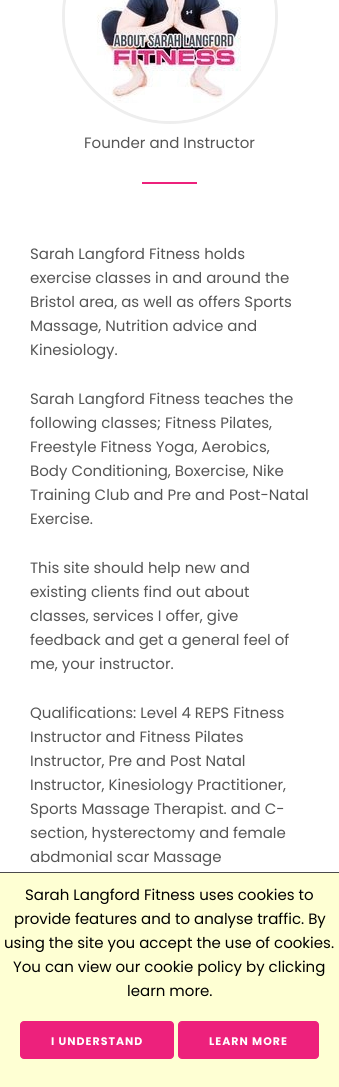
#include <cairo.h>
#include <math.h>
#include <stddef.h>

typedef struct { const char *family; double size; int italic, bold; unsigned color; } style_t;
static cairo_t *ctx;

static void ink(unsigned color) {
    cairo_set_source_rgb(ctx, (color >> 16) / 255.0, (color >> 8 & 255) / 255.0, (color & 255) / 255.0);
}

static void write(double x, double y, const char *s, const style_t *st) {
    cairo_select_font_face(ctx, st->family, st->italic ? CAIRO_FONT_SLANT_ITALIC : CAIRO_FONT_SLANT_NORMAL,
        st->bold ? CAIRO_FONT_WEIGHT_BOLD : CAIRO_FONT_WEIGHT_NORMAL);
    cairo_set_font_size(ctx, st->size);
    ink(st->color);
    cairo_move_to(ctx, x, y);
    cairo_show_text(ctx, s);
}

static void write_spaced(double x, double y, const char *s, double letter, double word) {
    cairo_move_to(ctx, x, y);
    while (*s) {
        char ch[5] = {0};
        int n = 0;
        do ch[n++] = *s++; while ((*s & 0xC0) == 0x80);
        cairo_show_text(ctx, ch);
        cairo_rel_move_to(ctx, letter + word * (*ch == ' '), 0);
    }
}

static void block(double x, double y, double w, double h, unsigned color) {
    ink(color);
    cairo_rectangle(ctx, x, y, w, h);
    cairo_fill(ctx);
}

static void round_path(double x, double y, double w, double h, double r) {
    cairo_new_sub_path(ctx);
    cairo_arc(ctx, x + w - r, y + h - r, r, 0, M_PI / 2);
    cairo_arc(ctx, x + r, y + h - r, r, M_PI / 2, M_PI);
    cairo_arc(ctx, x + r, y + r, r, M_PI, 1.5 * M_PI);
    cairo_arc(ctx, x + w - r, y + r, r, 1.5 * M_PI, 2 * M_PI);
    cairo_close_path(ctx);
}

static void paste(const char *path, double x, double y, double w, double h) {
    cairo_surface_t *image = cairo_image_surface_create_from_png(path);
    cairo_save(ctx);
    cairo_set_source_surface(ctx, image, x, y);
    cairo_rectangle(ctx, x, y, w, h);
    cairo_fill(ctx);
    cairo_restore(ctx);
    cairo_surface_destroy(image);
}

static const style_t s1 = {"Poppins", 15, 0, 0, 0x555555};
static const style_t s2 = {"Poppins", 15, 0, 0, 0x000000};

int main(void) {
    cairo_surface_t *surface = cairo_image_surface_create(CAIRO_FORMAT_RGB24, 339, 1087);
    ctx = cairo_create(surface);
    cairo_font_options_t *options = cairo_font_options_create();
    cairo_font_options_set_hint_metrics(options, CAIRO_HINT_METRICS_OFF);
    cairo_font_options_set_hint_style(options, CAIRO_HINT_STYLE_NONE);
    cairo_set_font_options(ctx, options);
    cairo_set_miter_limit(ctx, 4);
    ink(0xffffff);
    cairo_paint(ctx);
    cairo_arc(ctx, 170, 16, 106.5, 0, 2 * M_PI);
    ink(0xeeeeee);
    cairo_set_line_width(ctx, 3);
    cairo_stroke(ctx);
    paste("pic1.png", 65, 0, 210, 121);
    write(84, 148, "Founder and Instructor", &s1);
    block(142, 182, 55, 2, 0xed217c);
    write(30, 259, "Sarah Langford Fitness holds", &s1);
    write(30, 283, "exercise classes in and around the", &s1);
    write(30, 307, "Bristol area, as well as offers Sports", &s1);
    write(30, 331, "Massage, Nutrition advice and", &s1);
    write(30, 355, "Kinesiology.", &s1);
    write(30, 404, "Sarah Langford Fitness teaches the", &s1);
    write(30, 428, "following classes; Fitness Pilates,", &s1);
    write(30, 452, "Freestyle Fitness Yoga, Aerobics,", &s1);
    write(30, 476, "Body Conditioning, Boxercise, Nike", &s1);
    write(30, 500, "Training Club and Pre and Post-Natal", &s1);
    write(30, 524, "Exercise.", &s1);
    write(30, 573, "This site should help new and", &s1);
    write(30, 597, "existing clients find out about", &s1);
    write(30, 621, "classes, services I offer, give", &s1);
    write(30, 645, "feedback and get a general feel of", &s1);
    write(30, 669, "me, your instructor.", &s1);
    write(30, 718, "Qualifications: Level 4 REPS Fitness", &s1);
    write(30, 742, "Instructor and Fitness Pilates", &s1);
    write(30, 766, "Instructor, Pre and Post Natal", &s1);
    write(30, 790, "Instructor, Kinesiology Practitioner,", &s1);
    write(30, 814, "Sports Massage Therapist. and C-", &s1);
    write(30, 838, "section, hysterectomy and female", &s1);
    write(30, 862, "abdmonial scar Massage", &s1);
    block(0, 873, 339, 214, 0xfeffd3);
    block(0, 872, 339, 1, 0x4b4b4b);
    write(25, 900, "Sarah Langford Fitness uses cookies to", &s2);
    write(14, 924, "provide features and to analyse traffic. By", &s2);
    write(4, 948, "using the site you accept the use of cookies.", &s2);
    write(13, 972, "You can view our cookie policy by clicking", &s2);
    write(127, 996, "learn more.", &s2);
    ink(0xed217c);
    round_path(20.5, 1021.5, 153, 37, 3.5);
    cairo_fill_preserve(ctx);
    cairo_set_line_width(ctx, 1);
    cairo_stroke(ctx);
    cairo_select_font_face(ctx, "Poppins", CAIRO_FONT_SLANT_NORMAL, CAIRO_FONT_WEIGHT_BOLD);
    cairo_set_font_size(ctx, 11);
    ink(0xffffff);
    write_spaced(51, 1045, "I UNDERSTAND", 1, 0);
    ink(0xed217c);
    round_path(178.5, 1021.5, 140, 37, 3.5);
    cairo_fill_preserve(ctx);
    cairo_stroke(ctx);
    ink(0xffffff);
    write_spaced(209, 1045, "LEARN MORE", 1, 0);
    cairo_surface_write_to_png(surface, "screenshot.png");
    cairo_font_options_destroy(options);
    cairo_destroy(ctx);
    cairo_surface_destroy(surface);
    return 0;
}
